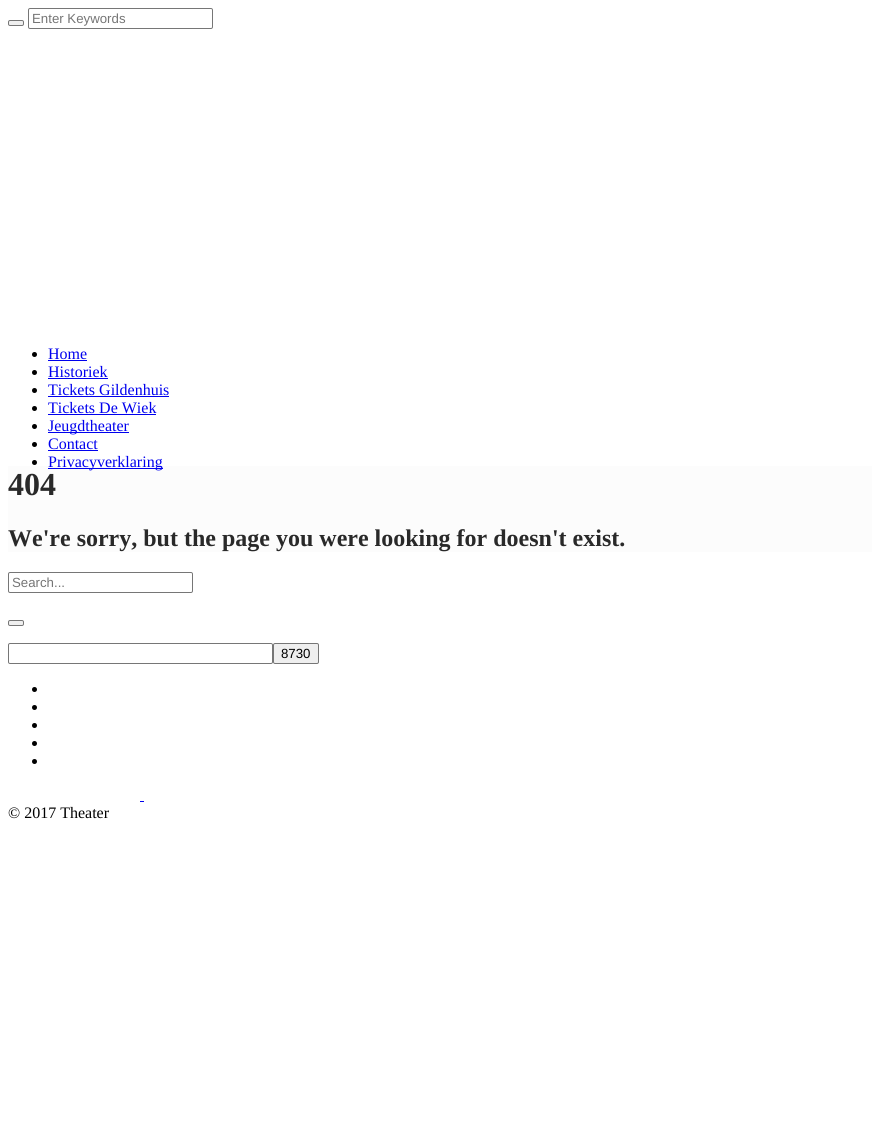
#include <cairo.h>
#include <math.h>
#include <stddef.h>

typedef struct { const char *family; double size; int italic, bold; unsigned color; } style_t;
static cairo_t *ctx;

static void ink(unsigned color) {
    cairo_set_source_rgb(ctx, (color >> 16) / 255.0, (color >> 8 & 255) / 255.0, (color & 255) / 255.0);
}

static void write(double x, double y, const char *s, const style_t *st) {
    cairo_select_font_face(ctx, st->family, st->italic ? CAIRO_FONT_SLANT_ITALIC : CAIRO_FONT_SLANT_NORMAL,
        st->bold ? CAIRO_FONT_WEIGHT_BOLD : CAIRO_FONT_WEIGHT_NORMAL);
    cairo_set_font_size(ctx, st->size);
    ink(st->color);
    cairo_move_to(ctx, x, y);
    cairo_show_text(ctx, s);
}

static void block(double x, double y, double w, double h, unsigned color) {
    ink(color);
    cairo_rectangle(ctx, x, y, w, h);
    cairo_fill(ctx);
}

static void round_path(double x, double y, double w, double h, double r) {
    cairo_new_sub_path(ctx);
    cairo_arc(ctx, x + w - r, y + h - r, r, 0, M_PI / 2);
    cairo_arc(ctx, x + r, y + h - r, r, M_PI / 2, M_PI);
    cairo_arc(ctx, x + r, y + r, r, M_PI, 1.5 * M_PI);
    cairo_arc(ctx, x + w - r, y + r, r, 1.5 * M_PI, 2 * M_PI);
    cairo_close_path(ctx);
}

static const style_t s1 = {"Liberation Sans", 13.25, 0, 0, 0x757575};
static const style_t s2 = {"Liberation Serif", 16, 0, 0, 0x0000ee};
static const style_t s3 = {"Liberation Serif", 32, 0, 1, 0x292929};
static const style_t s4 = {"Liberation Serif", 24, 0, 1, 0x292929};
static const style_t s5 = {"Liberation Sans", 13.25, 0, 0, 0x000000};
static const style_t s6 = {"Liberation Serif", 16, 0, 0, 0x000000};

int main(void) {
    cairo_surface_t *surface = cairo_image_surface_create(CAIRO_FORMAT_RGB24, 880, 1135);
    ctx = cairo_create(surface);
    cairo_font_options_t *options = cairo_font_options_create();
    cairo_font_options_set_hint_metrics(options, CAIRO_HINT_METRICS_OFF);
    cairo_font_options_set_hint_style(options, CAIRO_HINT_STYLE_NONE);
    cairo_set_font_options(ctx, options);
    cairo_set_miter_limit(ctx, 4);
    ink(0xffffff);
    cairo_paint(ctx);
    ink(0xefefef);
    round_path(8.5, 20.5, 15, 5, 1.5);
    cairo_fill_preserve(ctx);
    ink(0x767676);
    cairo_set_line_width(ctx, 1);
    cairo_stroke(ctx);
    round_path(28.5, 8.5, 184, 20, 1.5);
    cairo_stroke(ctx);
    write(32, 23, "Enter Keywords", &s1);
    ink(0x000000);
    cairo_new_path(ctx);
    cairo_arc(ctx, 34.5, 354.5, 2.5, 0, 2 * M_PI);
    cairo_fill(ctx);
    write(48, 359, "Home", &s2);
    block(48, 360, 39, 1, 0x0000ee);
    ink(0x000000);
    cairo_new_path(ctx);
    cairo_arc(ctx, 34.5, 372.5, 2.5, 0, 2 * M_PI);
    cairo_fill(ctx);
    write(48, 377, "Historiek", &s2);
    block(48, 378, 60, 1, 0x0000ee);
    ink(0x000000);
    cairo_new_path(ctx);
    cairo_arc(ctx, 34.5, 390.5, 2.5, 0, 2 * M_PI);
    cairo_fill(ctx);
    write(48, 395, "Tickets Gildenhuis", &s2);
    block(48, 396, 121, 1, 0x0000ee);
    ink(0x000000);
    cairo_new_path(ctx);
    cairo_arc(ctx, 34.5, 408.5, 2.5, 0, 2 * M_PI);
    cairo_fill(ctx);
    write(48, 413, "Tickets De Wiek", &s2);
    block(48, 414, 108, 1, 0x0000ee);
    ink(0x000000);
    cairo_new_path(ctx);
    cairo_arc(ctx, 34.5, 426.5, 2.5, 0, 2 * M_PI);
    cairo_fill(ctx);
    block(48, 432, 81, 1, 0x0000ee);
    write(48, 431, "Jeugdtheater", &s2);
    ink(0x000000);
    cairo_new_path(ctx);
    cairo_arc(ctx, 34.5, 444.5, 2.5, 0, 2 * M_PI);
    cairo_fill(ctx);
    write(48, 449, "Contact", &s2);
    block(48, 450, 50, 1, 0x0000ee);
    ink(0x000000);
    cairo_new_path(ctx);
    cairo_arc(ctx, 34.5, 462.5, 2.5, 0, 2 * M_PI);
    cairo_fill(ctx);
    block(8, 466, 864, 86, 0xfcfcfc);
    block(48, 468, 115, 1, 0x0000ee);
    write(48, 467, "Privacyverklaring", &s2);
    write(8, 495, "404", &s3);
    write(8, 546, "We're sorry, but the page you were looking for doesn't exist.", &s4);
    round_path(8.5, 572.5, 184, 20, 1.5);
    ink(0x767676);
    cairo_stroke(ctx);
    write(12, 587, "Search...", &s1);
    ink(0xefefef);
    round_path(8.5, 620.5, 15, 5, 1.5);
    cairo_fill_preserve(ctx);
    ink(0x767676);
    cairo_stroke(ctx);
    round_path(8.5, 643.5, 264, 20, 1.5);
    cairo_stroke(ctx);
    ink(0xefefef);
    round_path(273.5, 643.5, 45, 20, 1.5);
    cairo_fill_preserve(ctx);
    ink(0x767676);
    cairo_stroke(ctx);
    write(281, 658, "8730", &s5);
    cairo_new_path(ctx);
    cairo_arc(ctx, 34.5, 689.5, 2.5, 0, 2 * M_PI);
    cairo_fill(ctx);
    cairo_arc(ctx, 34.5, 707.5, 2.5, 0, 2 * M_PI);
    cairo_fill(ctx);
    cairo_arc(ctx, 34.5, 725.5, 2.5, 0, 2 * M_PI);
    cairo_fill(ctx);
    cairo_arc(ctx, 34.5, 743.5, 2.5, 0, 2 * M_PI);
    cairo_fill(ctx);
    cairo_arc(ctx, 34.5, 761.5, 2.5, 0, 2 * M_PI);
    cairo_fill(ctx);
    block(140, 801, 4, 1, 0x0000ee);
    write(8, 818, "© 2017 Theater", &s6);
    cairo_surface_write_to_png(surface, "screenshot.png");
    cairo_font_options_destroy(options);
    cairo_destroy(ctx);
    cairo_surface_destroy(surface);
    return 0;
}
